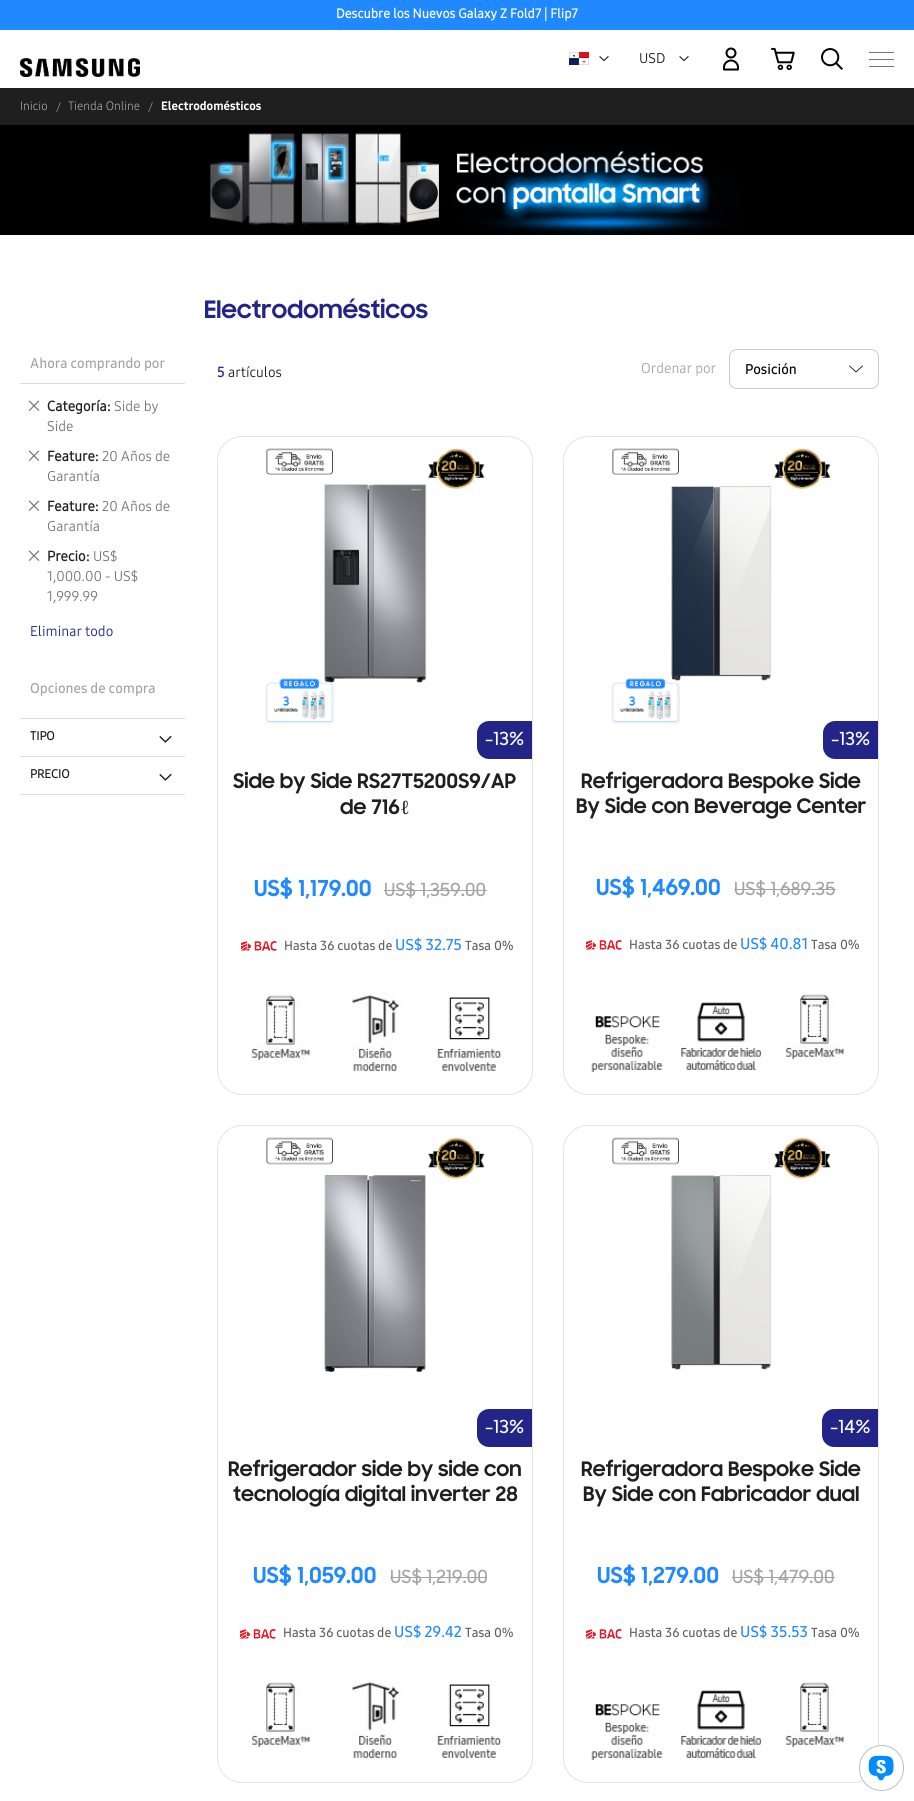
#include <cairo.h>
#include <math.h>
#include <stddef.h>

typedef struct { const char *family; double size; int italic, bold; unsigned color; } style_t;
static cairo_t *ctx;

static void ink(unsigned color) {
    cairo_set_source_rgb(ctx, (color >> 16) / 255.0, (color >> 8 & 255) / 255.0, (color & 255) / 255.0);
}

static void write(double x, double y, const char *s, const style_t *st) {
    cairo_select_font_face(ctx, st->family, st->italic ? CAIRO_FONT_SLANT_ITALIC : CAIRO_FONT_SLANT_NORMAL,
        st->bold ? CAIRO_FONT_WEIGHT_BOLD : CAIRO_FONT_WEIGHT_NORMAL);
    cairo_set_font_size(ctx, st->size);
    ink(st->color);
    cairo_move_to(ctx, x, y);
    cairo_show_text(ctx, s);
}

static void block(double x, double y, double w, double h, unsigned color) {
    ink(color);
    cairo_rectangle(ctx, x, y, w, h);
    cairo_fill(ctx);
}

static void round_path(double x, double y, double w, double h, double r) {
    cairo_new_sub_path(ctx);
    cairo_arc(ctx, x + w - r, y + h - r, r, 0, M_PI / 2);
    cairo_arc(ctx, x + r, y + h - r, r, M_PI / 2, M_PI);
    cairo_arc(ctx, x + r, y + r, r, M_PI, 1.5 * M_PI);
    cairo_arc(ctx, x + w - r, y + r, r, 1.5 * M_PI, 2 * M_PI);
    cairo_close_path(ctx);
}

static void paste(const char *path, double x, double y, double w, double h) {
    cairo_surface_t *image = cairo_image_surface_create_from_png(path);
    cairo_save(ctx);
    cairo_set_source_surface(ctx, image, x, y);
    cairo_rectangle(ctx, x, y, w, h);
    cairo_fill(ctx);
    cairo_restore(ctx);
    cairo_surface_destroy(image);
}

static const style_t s1 = {"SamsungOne", 13, 0, 1, 0xffffff};
static const style_t s2 = {"SamsungOne", 14, 0, 0, 0x1f1f1f};
static const style_t s3 = {"SamsungOne Light", 12, 0, 0, 0xbcbcbc};
static const style_t s4 = {"SamsungOne ExtraBold", 12, 0, 0, 0xffffff};
static const style_t s5 = {"SamsungOne SemiBold", 14, 0, 0, 0xa4a4a4};
static const style_t s6 = {"SamsungOne", 14, 0, 1, 0x1f1f1f};
static const style_t s7 = {"SamsungOne", 14, 0, 0, 0x757575};
static const style_t s8 = {"SamsungOne", 14, 0, 0, 0x222488};
static const style_t s9 = {"SamsungOne", 12, 0, 1, 0x1f1f1f};
static const style_t s10 = {"SamsungOne", 14, 0, 1, 0x222488};
static const style_t s11 = {"SamsungOne", 14, 0, 0, 0xa4a4a4};
static const style_t s12 = {"SamsungOne SemiBold", 14, 0, 0, 0x000000};
static const style_t s13 = {"Liberation Serif", 20, 0, 0, 0x1f1f1f};
static const style_t s14 = {"SamsungOne SemiBold", 13, 0, 0, 0x626262};
static const style_t s15 = {"SamsungOne SemiBold", 15.5, 0, 0, 0x2089ff};

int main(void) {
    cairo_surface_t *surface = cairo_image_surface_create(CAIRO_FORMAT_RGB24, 914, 1801);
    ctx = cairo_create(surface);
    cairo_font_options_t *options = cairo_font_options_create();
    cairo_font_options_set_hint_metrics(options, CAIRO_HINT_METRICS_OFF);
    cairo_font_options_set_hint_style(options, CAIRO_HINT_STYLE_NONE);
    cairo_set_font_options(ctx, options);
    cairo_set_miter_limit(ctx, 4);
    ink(0xffffff);
    cairo_paint(ctx);
    block(0, 0, 914, 30, 0x2089ff);
    write(336, 18, "Descubre los Nuevos Galaxy Z Fold7 | Flip7", &s1);
    paste("pic1.png", 20, 58, 120, 19);
    paste("pic2.png", 569, 52, 20, 13);
    paste("pic3.png", 599, 56, 10, 6);
    write(639, 63, "USD", &s2);
    paste("pic3.png", 679, 56, 10, 6);
    paste("pic4.png", 723, 47, 16, 24);
    paste("pic5.png", 771, 47, 24, 23);
    paste("pic6.png", 821, 48, 22, 22);
    block(869, 52, 25, 1, 0x757575);
    block(869, 59, 25, 1, 0x757575);
    block(869, 66, 25, 1, 0x757575);
    block(0, 88, 914, 37, 0x1f1f1f);
    write(20, 110, "Inicio", &s3);
    write(56, 111, "/", &s3);
    write(68, 110, "Tienda Online", &s3);
    write(148, 111, "/", &s3);
    write(161, 110, "Electrodomésticos", &s4);
    paste("pic7.png", 0, 125, 914, 110);
    paste("pic8.png", 205, 298, 223, 21);
    block(20, 383, 165, 1, 0xdddddd);
    write(30, 368, "Ahora comprando por", &s5);
    paste("pic9.png", 28, 400, 12, 11);
    write(47, 411, "Categoría:", &s6);
    write(114, 411, "Side by", &s7);
    write(47, 431, "Side", &s7);
    paste("pic9.png", 28, 450, 12, 11);
    write(47, 461, "Feature:", &s6);
    write(102, 461, "20 Años de", &s7);
    write(47, 481, "Garantía", &s7);
    paste("pic9.png", 28, 500, 12, 11);
    write(47, 511, "Feature:", &s6);
    write(102, 511, "20 Años de", &s7);
    write(47, 531, "Garantía", &s7);
    paste("pic9.png", 28, 550, 12, 11);
    write(47, 561, "Precio:", &s6);
    write(93, 561, "US$", &s7);
    write(47, 581, "1,000.00 - US$", &s7);
    write(47, 601, "1,999.99", &s7);
    write(30, 636, "Eliminar todo", &s8);
    block(20, 718, 165, 1, 0xdddddd);
    write(30, 693, "Opciones de compra", &s5);
    block(20, 756, 165, 1, 0xdddddd);
    write(30, 740, "TIPO", &s9);
    paste("pic10.png", 159, 735, 13, 8);
    block(20, 794, 165, 1, 0xdddddd);
    write(30, 778, "PRECIO", &s9);
    paste("pic10.png", 159, 773, 13, 8);
    write(217, 377, "5", &s10);
    write(228, 377, "artículos", &s2);
    write(641, 373, "Ordenar por", &s11);
    cairo_new_path(ctx);
    cairo_move_to(ctx, 849.5, 366);
    cairo_line_to(ctx, 856, 372);
    cairo_line_to(ctx, 862.5, 366);
    ink(0x000000);
    cairo_set_line_width(ctx, 0.8);
    cairo_set_line_cap(ctx, CAIRO_LINE_CAP_ROUND);
    cairo_set_line_join(ctx, CAIRO_LINE_JOIN_ROUND);
    cairo_stroke(ctx);
    round_path(729.5, 349.5, 149, 39, 7.5);
    ink(0xcccccc);
    cairo_set_line_width(ctx, 1);
    cairo_set_line_cap(ctx, CAIRO_LINE_CAP_BUTT);
    cairo_set_line_join(ctx, CAIRO_LINE_JOIN_MITER);
    cairo_stroke(ctx);
    write(745, 374, "Posición", &s12);
    round_path(217.5, 436.5, 315, 658, 24.5);
    ink(0xe4e4e4);
    cairo_stroke(ctx);
    paste("pic11.png", 266, 448, 67, 27);
    paste("pic12.png", 428, 448, 57, 41);
    paste("pic13.png", 324, 484, 103, 199);
    paste("pic14.png", 265, 678, 69, 46);
    ink(0x222488);
    cairo_new_path(ctx);
    cairo_move_to(ctx, 489, 721);
    cairo_line_to(ctx, 532, 721);
    cairo_line_to(ctx, 532, 759);
    cairo_line_to(ctx, 489, 759);
    cairo_curve_to(ctx, 482.5, 759, 477, 753.5, 477, 747);
    cairo_line_to(ctx, 477, 733);
    cairo_curve_to(ctx, 477, 726.5, 482.5, 721, 489, 721);
    cairo_close_path(ctx);
    cairo_fill(ctx);
    paste("pic15.png", 485, 731, 39, 15);
    paste("pic16.png", 254, 877, 117, 22);
    paste("pic17.png", 385, 880, 100, 19);
    block(384, 890, 103, 1, 0xa4a4a4);
    paste("pic18.png", 233, 771, 283, 23);
    paste("pic19.png", 340, 799, 60, 16);
    write(400, 814, "ℓ", &s13);
    paste("pic20.png", 241, 941, 36, 10);
    write(284, 950, "Hasta 36 cuotas de", &s14);
    write(395, 950, "US$ 32.75", &s15);
    write(465, 950, "Tasa 0%", &s14);
    paste("pic21.png", 251, 993, 60, 68);
    paste("pic22.png", 351, 992, 53, 81);
    paste("pic23.png", 437, 997, 64, 74);
    round_path(563.5, 436.5, 315, 658, 24.5);
    ink(0xe4e4e4);
    cairo_stroke(ctx);
    paste("pic11.png", 612, 448, 67, 27);
    paste("pic12.png", 774, 448, 57, 41);
    paste("pic24.png", 671, 486, 101, 195);
    paste("pic25.png", 611, 678, 69, 46);
    ink(0x222488);
    cairo_new_path(ctx);
    cairo_move_to(ctx, 835, 721);
    cairo_line_to(ctx, 878, 721);
    cairo_line_to(ctx, 878, 759);
    cairo_line_to(ctx, 835, 759);
    cairo_curve_to(ctx, 828.5, 759, 823, 753.5, 823, 747);
    cairo_line_to(ctx, 823, 733);
    cairo_curve_to(ctx, 823, 726.5, 828.5, 721, 835, 721);
    cairo_close_path(ctx);
    cairo_fill(ctx);
    paste("pic15.png", 831, 731, 39, 15);
    paste("pic26.png", 596, 876, 124, 22);
    paste("pic27.png", 735, 879, 100, 19);
    block(734, 889, 102, 1, 0xa4a4a4);
    paste("pic28.png", 581, 771, 280, 23);
    paste("pic29.png", 576, 796, 290, 23);
    paste("pic20.png", 586, 940, 36, 10);
    write(629, 949, "Hasta 36 cuotas de", &s14);
    write(740, 949, "US$ 40.81", &s15);
    write(811, 949, "Tasa 0%", &s14);
    paste("pic30.png", 591, 1016, 72, 56);
    paste("pic31.png", 681, 1002, 80, 68);
    paste("pic21.png", 785, 992, 60, 68);
    round_path(217.5, 1125.5, 315, 657, 24.5);
    ink(0xe4e4e4);
    cairo_stroke(ctx);
    paste("pic32.png", 266, 1137, 67, 28);
    paste("pic33.png", 428, 1137, 57, 42);
    paste("pic34.png", 324, 1175, 102, 197);
    ink(0x222488);
    cairo_new_path(ctx);
    cairo_move_to(ctx, 489, 1409);
    cairo_line_to(ctx, 532, 1409);
    cairo_line_to(ctx, 532, 1447);
    cairo_line_to(ctx, 489, 1447);
    cairo_curve_to(ctx, 482.5, 1447, 477, 1441.5, 477, 1435);
    cairo_line_to(ctx, 477, 1421);
    cairo_curve_to(ctx, 477, 1414.5, 482.5, 1409, 489, 1409);
    cairo_close_path(ctx);
    cairo_fill(ctx);
    paste("pic15.png", 485, 1419, 39, 15);
    paste("pic35.png", 253, 1564, 123, 22);
    paste("pic36.png", 391, 1567, 96, 19);
    block(390, 1577, 97, 1, 0xa4a4a4);
    paste("pic37.png", 228, 1459, 293, 23);
    paste("pic38.png", 233, 1484, 285, 23);
    paste("pic20.png", 240, 1629, 36, 10);
    write(283, 1637, "Hasta 36 cuotas de", &s14);
    write(394, 1637, "US$ 29.42", &s15);
    write(465, 1637, "Tasa 0%", &s14);
    paste("pic39.png", 251, 1680, 60, 68);
    paste("pic40.png", 351, 1679, 53, 81);
    paste("pic41.png", 437, 1684, 64, 74);
    round_path(563.5, 1125.5, 315, 657, 24.5);
    ink(0xe4e4e4);
    cairo_stroke(ctx);
    paste("pic32.png", 612, 1137, 67, 28);
    paste("pic33.png", 774, 1137, 57, 42);
    paste("pic42.png", 671, 1175, 101, 195);
    ink(0x222488);
    cairo_new_path(ctx);
    cairo_move_to(ctx, 834, 1409);
    cairo_line_to(ctx, 878, 1409);
    cairo_line_to(ctx, 878, 1447);
    cairo_line_to(ctx, 834, 1447);
    cairo_curve_to(ctx, 827.5, 1447, 822, 1441.5, 822, 1435);
    cairo_line_to(ctx, 822, 1421);
    cairo_curve_to(ctx, 822, 1414.5, 827.5, 1409, 834, 1409);
    cairo_close_path(ctx);
    cairo_fill(ctx);
    paste("pic43.png", 830, 1419, 40, 15);
    paste("pic44.png", 597, 1564, 122, 22);
    paste("pic45.png", 733, 1567, 101, 19);
    block(732, 1577, 103, 1, 0xa4a4a4);
    paste("pic28.png", 581, 1459, 280, 23);
    paste("pic46.png", 583, 1484, 276, 23);
    paste("pic20.png", 586, 1629, 36, 10);
    write(629, 1637, "Hasta 36 cuotas de", &s14);
    write(740, 1637, "US$ 35.53", &s15);
    write(811, 1637, "Tasa 0%", &s14);
    paste("pic47.png", 591, 1704, 72, 56);
    paste("pic48.png", 681, 1690, 80, 68);
    paste("pic39.png", 785, 1680, 60, 68);
    ink(0xffffff);
    round_path(859, 1745, 45, 46, 22.5);
    cairo_fill(ctx);
    paste("pic49.png", 868, 1755, 26, 26);
    round_path(859.5, 1745.5, 44, 45, 22);
    ink(0xbebebe);
    cairo_stroke(ctx);
    cairo_surface_write_to_png(surface, "screenshot.png");
    cairo_font_options_destroy(options);
    cairo_destroy(ctx);
    cairo_surface_destroy(surface);
    return 0;
}
